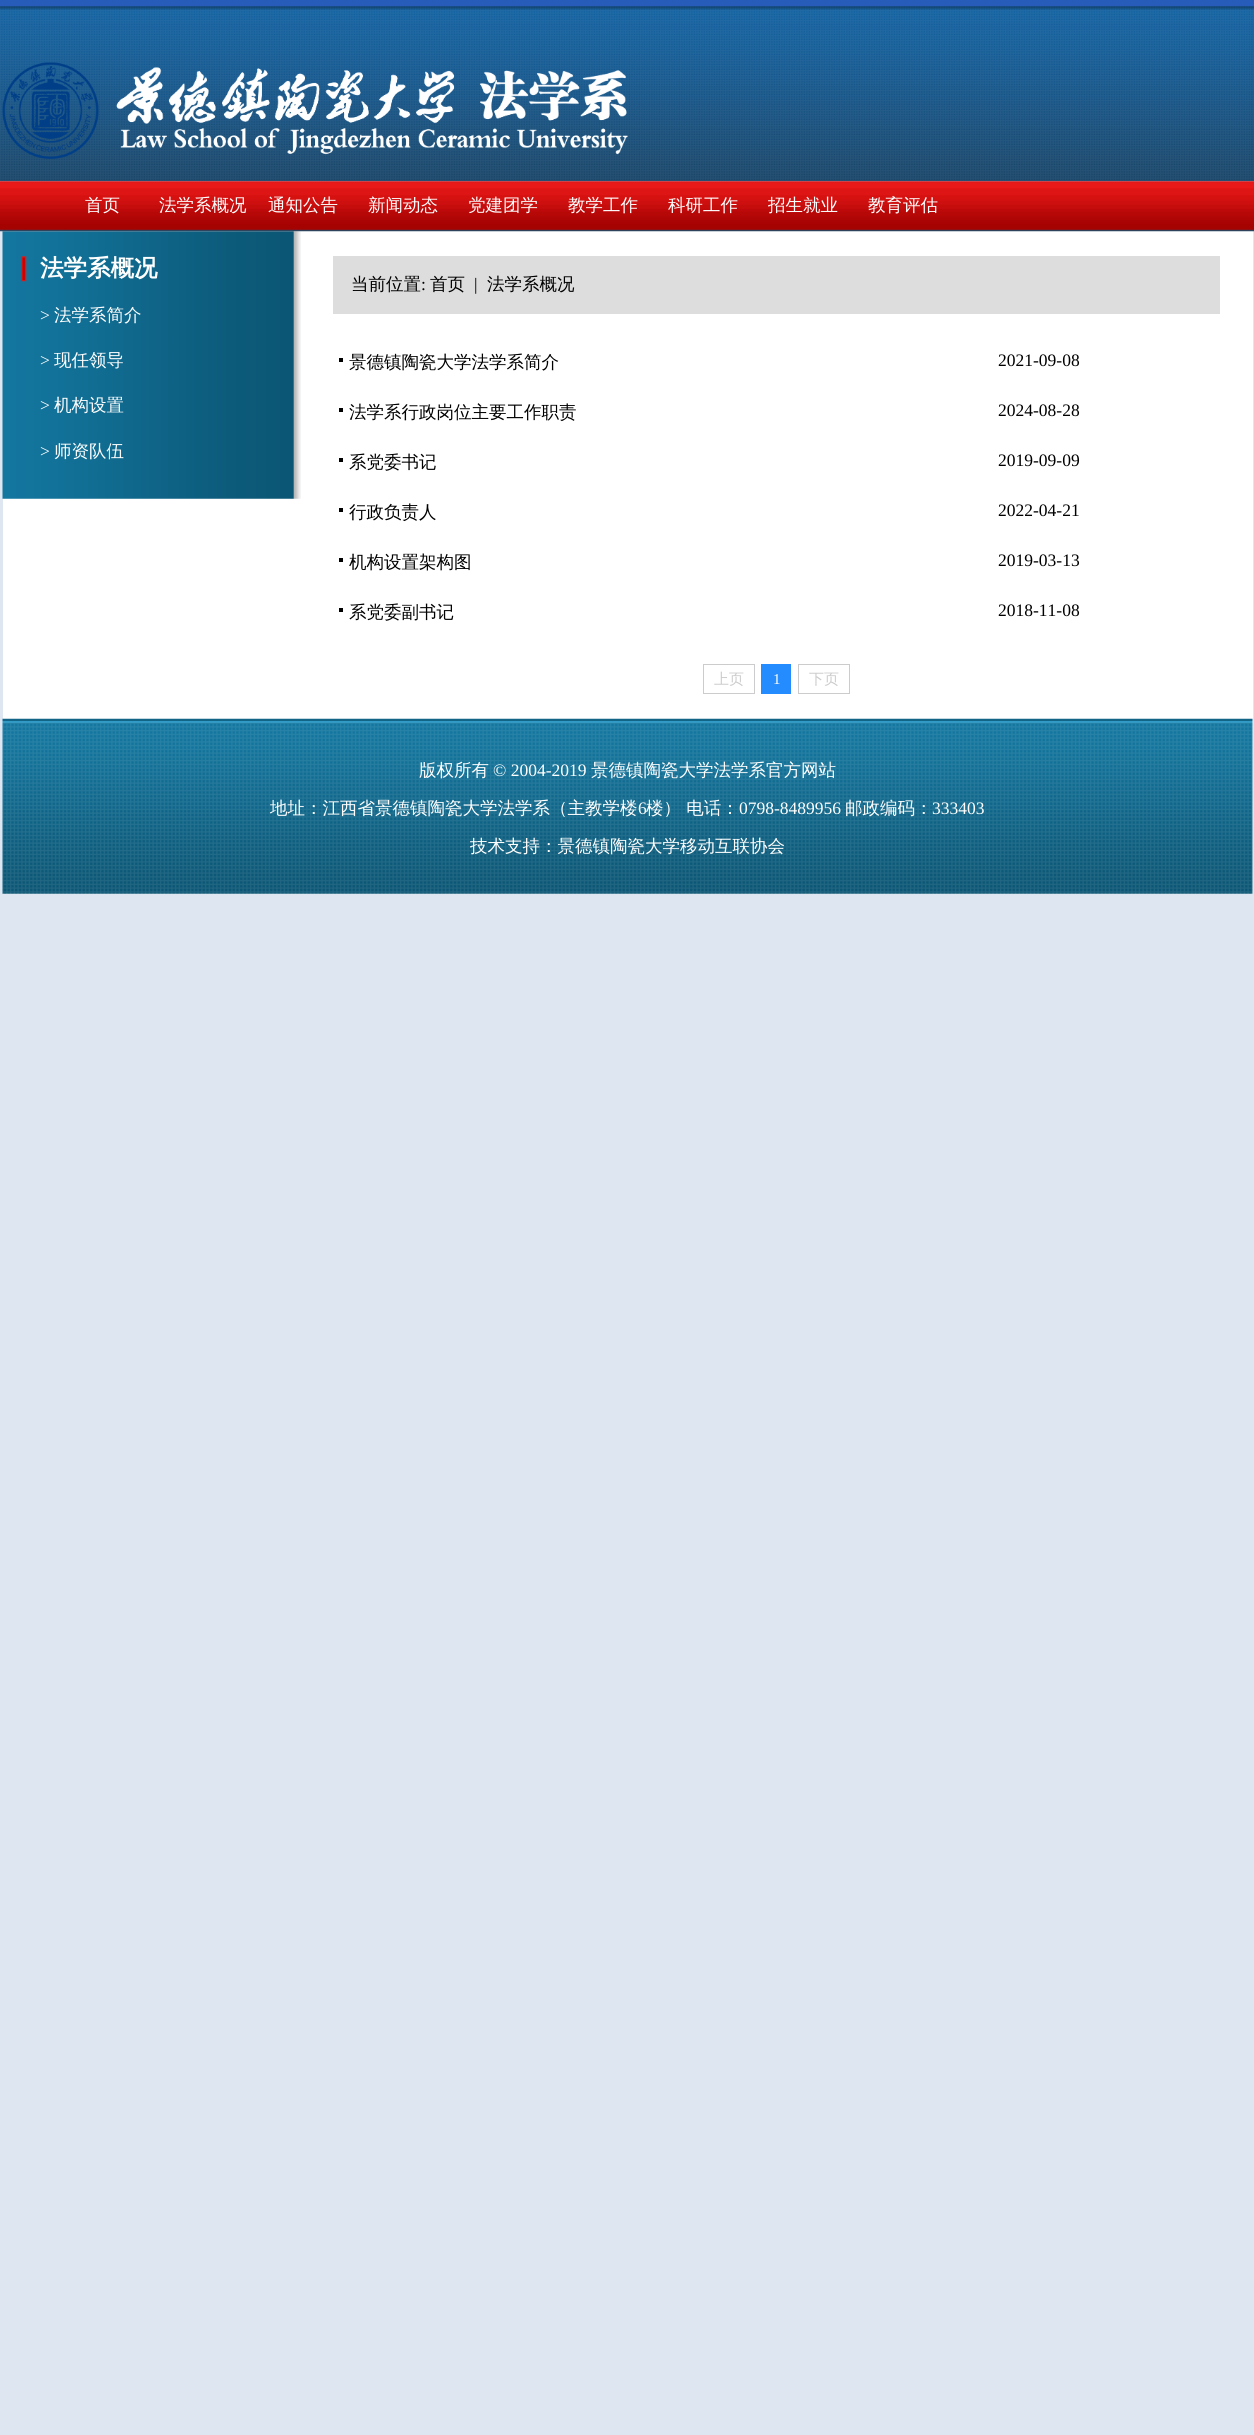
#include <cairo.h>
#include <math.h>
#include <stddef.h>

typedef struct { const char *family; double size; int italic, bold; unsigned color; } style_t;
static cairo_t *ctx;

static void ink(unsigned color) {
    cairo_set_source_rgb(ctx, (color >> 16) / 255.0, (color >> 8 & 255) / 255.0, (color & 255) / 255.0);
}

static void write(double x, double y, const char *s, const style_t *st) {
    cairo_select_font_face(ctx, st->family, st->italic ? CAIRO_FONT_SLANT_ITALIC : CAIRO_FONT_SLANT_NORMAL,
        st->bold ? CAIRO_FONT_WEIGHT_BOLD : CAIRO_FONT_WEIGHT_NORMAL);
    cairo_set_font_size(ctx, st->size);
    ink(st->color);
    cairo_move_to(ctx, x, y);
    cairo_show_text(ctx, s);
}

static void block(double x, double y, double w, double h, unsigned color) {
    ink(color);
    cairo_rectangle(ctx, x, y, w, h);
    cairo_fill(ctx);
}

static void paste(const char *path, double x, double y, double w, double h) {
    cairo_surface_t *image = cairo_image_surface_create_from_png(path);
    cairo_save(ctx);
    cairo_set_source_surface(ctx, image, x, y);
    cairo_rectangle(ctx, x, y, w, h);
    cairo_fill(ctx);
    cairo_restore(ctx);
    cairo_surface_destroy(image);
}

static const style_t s1 = {"WenQuanYi Zen Hei Medium", 17.5, 0, 0, 0xffffff};
static const style_t s2 = {"WenQuanYi Zen Hei", 23.5, 0, 1, 0xffffff};
static const style_t s3 = {"Liberation Serif", 17.5, 0, 0, 0xffffff};
static const style_t s4 = {"WenQuanYi Zen Hei Medium", 17.5, 0, 0, 0x000000};
static const style_t s5 = {"Liberation Serif", 17.5, 0, 0, 0x000000};
static const style_t s6 = {"WenQuanYi Zen Hei Medium", 15, 0, 0, 0xcccccc};
static const style_t s7 = {"Liberation Serif", 15, 0, 0, 0xffffff};

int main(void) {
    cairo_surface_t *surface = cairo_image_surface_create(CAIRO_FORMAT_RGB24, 1254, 2435);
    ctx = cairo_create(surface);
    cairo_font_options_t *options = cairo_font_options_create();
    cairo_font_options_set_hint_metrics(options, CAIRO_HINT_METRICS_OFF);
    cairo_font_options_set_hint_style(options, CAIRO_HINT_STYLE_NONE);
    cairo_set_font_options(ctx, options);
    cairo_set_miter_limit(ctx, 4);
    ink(0xdee6f1);
    cairo_paint(ctx);
    paste("pic1.png", 0, 0, 1254, 182);
    paste("pic2.png", 2, 62, 626, 97);
    block(3, 231, 1250, 663, 0xffffff);
    paste("pic4.png", 2, 231, 299, 268);
    paste("pic3.png", 0, 181, 1254, 51);
    write(85, 211, "首页", &s1);
    write(159, 211, "法学系概况", &s1);
    write(268, 211, "通知公告", &s1);
    write(368, 211, "新闻动态", &s1);
    write(468, 211, "党建团学", &s1);
    write(568, 211, "教学工作", &s1);
    write(668, 211, "科研工作", &s1);
    write(768, 211, "招生就业", &s1);
    write(868, 211, "教育评估", &s1);
    paste("pic5.png", 21, 256, 6, 26);
    write(40, 276, "法学系概况", &s2);
    write(40, 321, ">", &s3);
    write(54, 321, "法学系简介", &s1);
    write(40, 366, ">", &s3);
    write(54, 366, "现任领导", &s1);
    write(40, 411, ">", &s3);
    write(54, 411, "机构设置", &s1);
    write(40, 457, ">", &s3);
    write(54, 457, "师资队伍", &s1);
    block(333, 256, 887, 58, 0xdddddd);
    write(351, 290, "当前位置", &s4);
    write(421, 290, ":", &s5);
    write(430, 290, "首页", &s4);
    write(474, 290, "|", &s5);
    write(487, 290, "法学系概况", &s4);
    block(339, 358, 4, 4, 0x000000);
    write(349, 368, "景德镇陶瓷大学法学系简介", &s4);
    write(998, 366, "2021-09-08", &s5);
    block(339, 408, 4, 4, 0x000000);
    write(349, 418, "法学系行政岗位主要工作职责", &s4);
    write(998, 416, "2024-08-28", &s5);
    block(339, 458, 4, 4, 0x000000);
    write(349, 468, "系党委书记", &s4);
    write(998, 466, "2019-09-09", &s5);
    block(339, 508, 4, 4, 0x000000);
    write(349, 518, "行政负责人", &s4);
    write(998, 516, "2022-04-21", &s5);
    block(339, 558, 4, 4, 0x000000);
    write(349, 568, "机构设置架构图", &s4);
    write(998, 566, "2019-03-13", &s5);
    block(339, 608, 4, 4, 0x000000);
    write(349, 618, "系党委副书记", &s4);
    write(998, 616, "2018-11-08", &s5);
    cairo_rectangle(ctx, 703.5, 664.5, 51, 29);
    ink(0xcccccc);
    cairo_set_line_width(ctx, 1);
    cairo_stroke(ctx);
    write(714, 684, "上页", &s6);
    block(761, 664, 30, 30, 0x258cff);
    write(773, 684, "1", &s7);
    cairo_rectangle(ctx, 798.5, 664.5, 51, 29);
    ink(0xcccccc);
    cairo_stroke(ctx);
    write(809, 684, "下页", &s6);
    paste("pic6.png", 2, 718, 1251, 176);
    write(419, 776, "版权所有", &s1);
    write(493, 776, "© 2004-2019", &s3);
    write(591, 776, "景德镇陶瓷大学法学系官方网站", &s1);
    write(270, 814, "地址：江西省景德镇陶瓷大学法学系（主教学楼", &s1);
    write(638, 814, "6", &s3);
    write(646, 814, "楼） 电话：", &s1);
    write(739, 814, "0798-8489956", &s3);
    write(845, 814, "邮政编码：", &s1);
    write(932, 814, "333403", &s3);
    write(470, 852, "技术支持：景德镇陶瓷大学移动互联协会", &s1);
    cairo_surface_write_to_png(surface, "screenshot.png");
    cairo_font_options_destroy(options);
    cairo_destroy(ctx);
    cairo_surface_destroy(surface);
    return 0;
}
